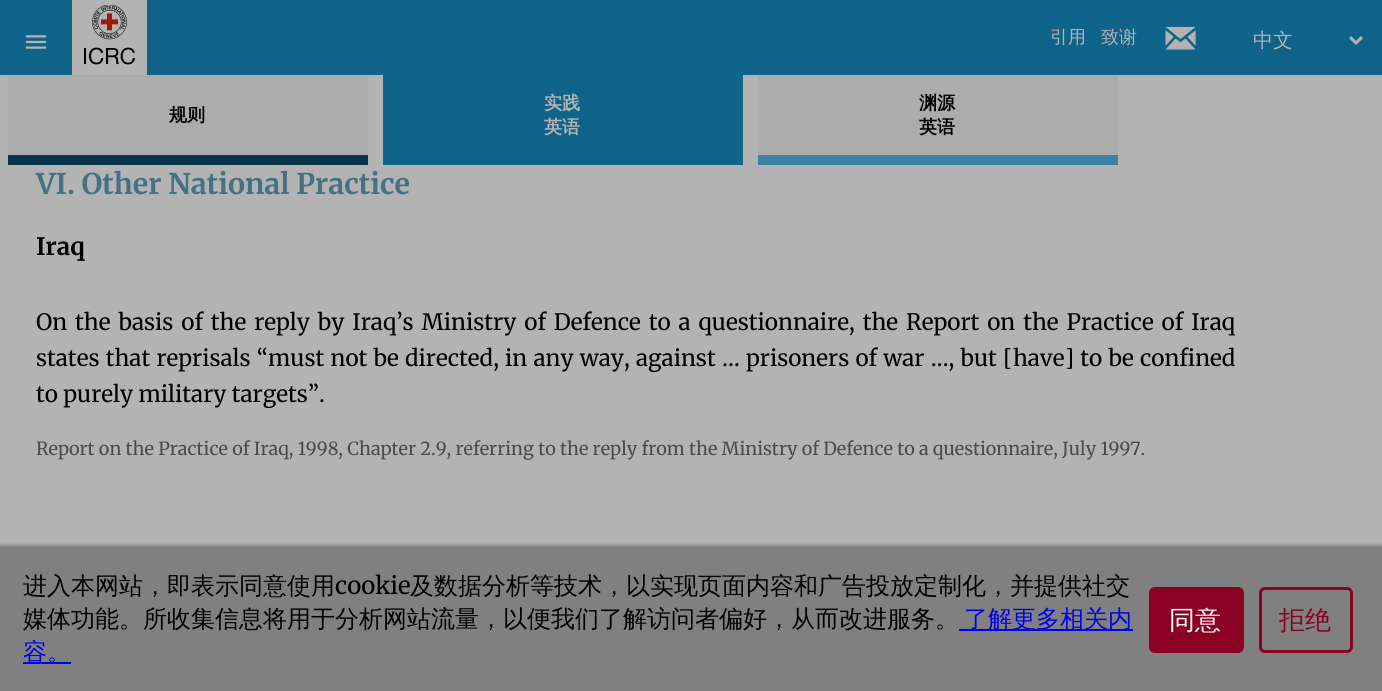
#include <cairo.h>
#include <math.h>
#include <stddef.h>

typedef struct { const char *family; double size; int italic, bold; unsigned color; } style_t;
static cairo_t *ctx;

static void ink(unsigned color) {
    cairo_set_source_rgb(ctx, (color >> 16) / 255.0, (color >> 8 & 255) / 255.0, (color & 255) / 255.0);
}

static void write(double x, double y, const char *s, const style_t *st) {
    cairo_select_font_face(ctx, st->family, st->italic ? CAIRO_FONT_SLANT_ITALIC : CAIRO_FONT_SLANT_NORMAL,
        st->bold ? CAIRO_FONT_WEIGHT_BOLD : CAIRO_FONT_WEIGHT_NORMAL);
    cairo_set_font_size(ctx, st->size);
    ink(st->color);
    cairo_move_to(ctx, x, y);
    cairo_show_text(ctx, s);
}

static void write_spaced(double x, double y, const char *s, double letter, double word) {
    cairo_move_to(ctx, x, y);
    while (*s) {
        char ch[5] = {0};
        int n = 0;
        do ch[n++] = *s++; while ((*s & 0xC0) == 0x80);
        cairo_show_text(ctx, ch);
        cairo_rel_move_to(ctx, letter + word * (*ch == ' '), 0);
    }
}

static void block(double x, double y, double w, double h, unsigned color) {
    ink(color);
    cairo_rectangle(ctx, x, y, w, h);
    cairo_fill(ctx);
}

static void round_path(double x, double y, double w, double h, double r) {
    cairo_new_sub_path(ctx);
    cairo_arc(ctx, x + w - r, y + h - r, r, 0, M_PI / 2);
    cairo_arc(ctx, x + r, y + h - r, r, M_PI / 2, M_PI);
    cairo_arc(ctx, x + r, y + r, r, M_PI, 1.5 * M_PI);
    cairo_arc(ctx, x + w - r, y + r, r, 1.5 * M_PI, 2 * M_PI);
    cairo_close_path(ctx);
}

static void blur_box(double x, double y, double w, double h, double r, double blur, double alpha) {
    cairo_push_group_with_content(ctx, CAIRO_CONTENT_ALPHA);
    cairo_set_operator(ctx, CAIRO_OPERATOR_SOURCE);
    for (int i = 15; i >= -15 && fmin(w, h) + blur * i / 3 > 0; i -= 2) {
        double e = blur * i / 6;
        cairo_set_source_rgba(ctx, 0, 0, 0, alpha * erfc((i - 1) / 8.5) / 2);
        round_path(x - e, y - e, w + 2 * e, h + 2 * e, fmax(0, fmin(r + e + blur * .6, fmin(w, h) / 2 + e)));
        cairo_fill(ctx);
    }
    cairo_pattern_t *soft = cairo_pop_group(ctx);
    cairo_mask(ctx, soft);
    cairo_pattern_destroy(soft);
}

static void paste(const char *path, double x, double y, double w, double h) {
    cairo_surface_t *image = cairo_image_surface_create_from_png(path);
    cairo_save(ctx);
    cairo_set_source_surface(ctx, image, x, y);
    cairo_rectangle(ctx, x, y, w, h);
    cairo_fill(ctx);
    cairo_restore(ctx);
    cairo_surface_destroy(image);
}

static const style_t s1 = {"WenQuanYi Zen Hei Medium", 18, 0, 0, 0xb3b3b3};
static const style_t s2 = {"WenQuanYi Zen Hei Medium", 20, 0, 0, 0xb3b3b3};
static const style_t s3 = {"WenQuanYi Zen Hei", 18, 0, 1, 0x000000};
static const style_t s4 = {"WenQuanYi Zen Hei", 18, 0, 1, 0xb3b3b3};
static const style_t s5 = {"Merriweather", 28.5, 0, 1, 0x457283};
static const style_t s6 = {"Merriweather", 24, 0, 1, 0x000000};
static const style_t s7 = {"Merriweather", 22.5, 0, 0, 0x000000};
static const style_t s8 = {"Merriweather", 18, 0, 0, 0x4e4a4a};
static const style_t s9 = {"WenQuanYi Zen Hei Medium", 24, 0, 0, 0x000000};
static const style_t s10 = {"Merriweather", 24, 0, 0, 0x000000};
static const style_t s11 = {"WenQuanYi Zen Hei Medium", 24, 0, 0, 0x0000ee};
static const style_t s12 = {"WenQuanYi Zen Hei Medium", 26, 0, 0, 0xffffff};
static const style_t s13 = {"WenQuanYi Zen Hei Medium", 26, 0, 0, 0x8a0124};

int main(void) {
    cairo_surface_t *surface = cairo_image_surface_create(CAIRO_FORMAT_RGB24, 1382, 691);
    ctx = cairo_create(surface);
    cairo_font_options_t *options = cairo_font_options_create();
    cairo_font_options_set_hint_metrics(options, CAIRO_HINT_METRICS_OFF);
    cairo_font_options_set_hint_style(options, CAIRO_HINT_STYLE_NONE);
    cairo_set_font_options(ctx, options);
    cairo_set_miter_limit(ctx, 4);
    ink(0xb3b3b3);
    cairo_paint(ctx);
    block(0, 0, 1382, 75, 0x106389);
    paste("pic1.png", 25, 35, 22, 14);
    block(72, 0, 75, 75, 0xb3b3b3);
    paste("pic2.png", 84, 5, 51, 60);
    write(1050, 43, "引用", &s1);
    write(1101, 43, "致谢", &s1);
    paste("pic3.png", 1165, 26, 31, 24);
    cairo_new_path(ctx);
    cairo_move_to(ctx, 1350, 37);
    cairo_line_to(ctx, 1356, 43);
    cairo_line_to(ctx, 1362, 37);
    cairo_set_line_width(ctx, 3);
    cairo_stroke(ctx);
    write(1253, 47, "中文", &s2);
    block(8, 75, 360, 80, 0xacacac);
    block(8, 155, 360, 10, 0x083549);
    write(169, 121, "规则", &s3);
    block(383, 75, 360, 90, 0x106389);
    write(544, 109, "实践", &s4);
    write(544, 133, "英语", &s4);
    block(758, 75, 360, 80, 0xacacac);
    block(758, 155, 360, 10, 0x3b84a5);
    write(919, 109, "渊源", &s3);
    write(919, 133, "英语", &s3);
    write(36, 194, "VI. Other National Practice", &s5);
    write(36, 255, "Iraq", &s6);
    cairo_select_font_face(ctx, "Merriweather", CAIRO_FONT_SLANT_NORMAL, CAIRO_FONT_WEIGHT_NORMAL);
    cairo_set_font_size(ctx, 22.5);
    write_spaced(36, 330, "On the basis of the reply by Iraq’s Ministry of Defence to a questionnaire, the Report on the Practice of Iraq", 0, 2.6);
    write_spaced(36, 366, "states that reprisals “must not be directed, in any way, against … prisoners of war …, but [have] to be confined", 0, 0.9);
    write(36, 402, "to purely military targets”.", &s7);
    write(36, 455, "Report on the Practice of Iraq, 1998, Chapter 2.9, referring to the reply from the Ministry of Defence to a questionnaire, July 1997.", &s8);
    ink(0x6b6b6b);
    blur_box(0, 546, 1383, 144, 0, 2, 1);
    block(0, 548, 1382, 143, 0x808080);
    write(23, 594, "进入本网站，即表示同意使用", &s9);
    write(335, 594, "cookie", &s10);
    write(410, 594, "及数据分析等技术，以实现页面内容和广告投放定制化，并提供社交", &s9);
    write(23, 627, "媒体功能。所收集信息将用于分析网站流量，以便我们了解访问者偏好，从而改进服务。", &s9);
    block(959, 629, 174, 2, 0x0000ee);
    write(964, 627, "了解更多相关内", &s11);
    block(23, 662, 48, 2, 0x0000ee);
    write(23, 660, "容。", &s11);
    ink(0x8a0124);
    round_path(1150.5, 588.5, 92, 63, 4.5);
    cairo_fill_preserve(ctx);
    cairo_stroke(ctx);
    write(1169, 629, "同意", &s12);
    round_path(1260.5, 588.5, 91, 63, 4.5);
    ink(0x8a0124);
    cairo_stroke(ctx);
    write(1279, 629, "拒绝", &s13);
    cairo_surface_write_to_png(surface, "screenshot.png");
    cairo_font_options_destroy(options);
    cairo_destroy(ctx);
    cairo_surface_destroy(surface);
    return 0;
}
